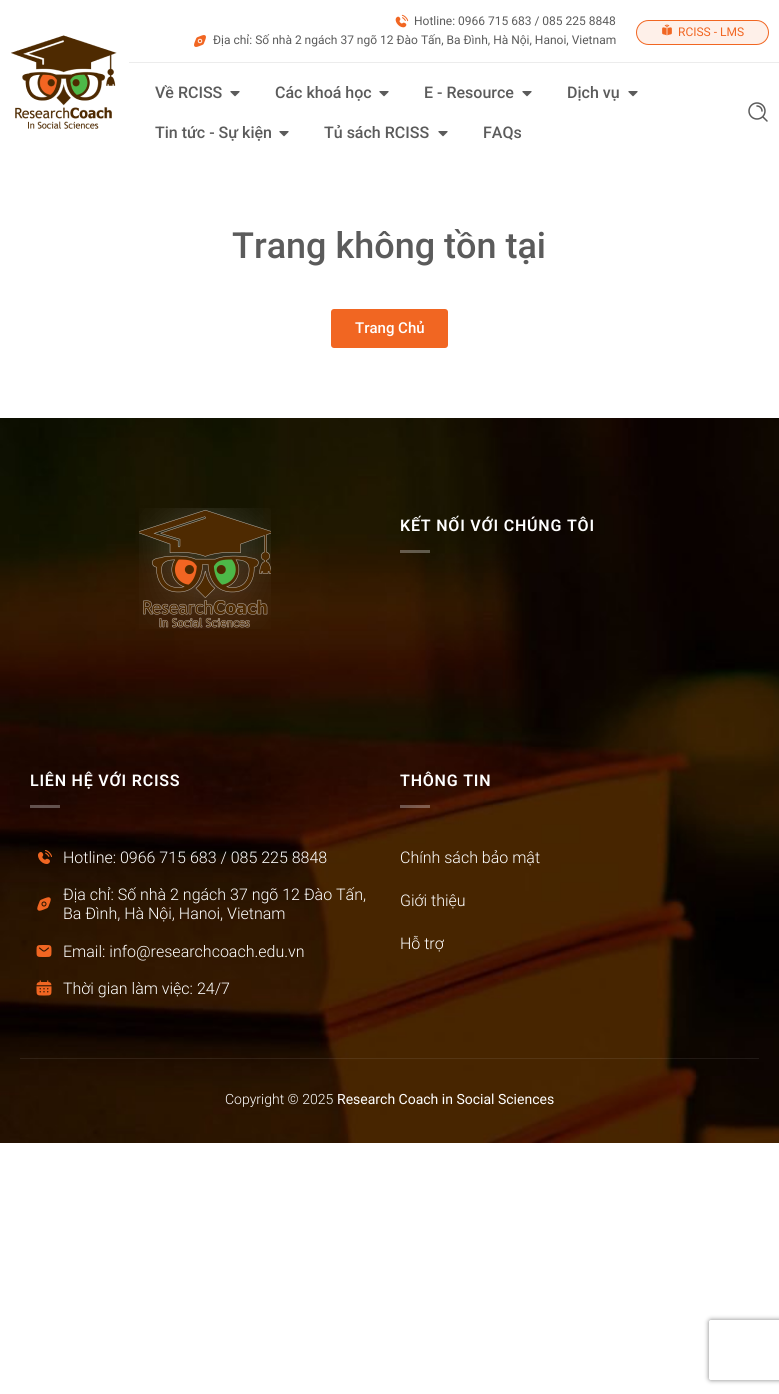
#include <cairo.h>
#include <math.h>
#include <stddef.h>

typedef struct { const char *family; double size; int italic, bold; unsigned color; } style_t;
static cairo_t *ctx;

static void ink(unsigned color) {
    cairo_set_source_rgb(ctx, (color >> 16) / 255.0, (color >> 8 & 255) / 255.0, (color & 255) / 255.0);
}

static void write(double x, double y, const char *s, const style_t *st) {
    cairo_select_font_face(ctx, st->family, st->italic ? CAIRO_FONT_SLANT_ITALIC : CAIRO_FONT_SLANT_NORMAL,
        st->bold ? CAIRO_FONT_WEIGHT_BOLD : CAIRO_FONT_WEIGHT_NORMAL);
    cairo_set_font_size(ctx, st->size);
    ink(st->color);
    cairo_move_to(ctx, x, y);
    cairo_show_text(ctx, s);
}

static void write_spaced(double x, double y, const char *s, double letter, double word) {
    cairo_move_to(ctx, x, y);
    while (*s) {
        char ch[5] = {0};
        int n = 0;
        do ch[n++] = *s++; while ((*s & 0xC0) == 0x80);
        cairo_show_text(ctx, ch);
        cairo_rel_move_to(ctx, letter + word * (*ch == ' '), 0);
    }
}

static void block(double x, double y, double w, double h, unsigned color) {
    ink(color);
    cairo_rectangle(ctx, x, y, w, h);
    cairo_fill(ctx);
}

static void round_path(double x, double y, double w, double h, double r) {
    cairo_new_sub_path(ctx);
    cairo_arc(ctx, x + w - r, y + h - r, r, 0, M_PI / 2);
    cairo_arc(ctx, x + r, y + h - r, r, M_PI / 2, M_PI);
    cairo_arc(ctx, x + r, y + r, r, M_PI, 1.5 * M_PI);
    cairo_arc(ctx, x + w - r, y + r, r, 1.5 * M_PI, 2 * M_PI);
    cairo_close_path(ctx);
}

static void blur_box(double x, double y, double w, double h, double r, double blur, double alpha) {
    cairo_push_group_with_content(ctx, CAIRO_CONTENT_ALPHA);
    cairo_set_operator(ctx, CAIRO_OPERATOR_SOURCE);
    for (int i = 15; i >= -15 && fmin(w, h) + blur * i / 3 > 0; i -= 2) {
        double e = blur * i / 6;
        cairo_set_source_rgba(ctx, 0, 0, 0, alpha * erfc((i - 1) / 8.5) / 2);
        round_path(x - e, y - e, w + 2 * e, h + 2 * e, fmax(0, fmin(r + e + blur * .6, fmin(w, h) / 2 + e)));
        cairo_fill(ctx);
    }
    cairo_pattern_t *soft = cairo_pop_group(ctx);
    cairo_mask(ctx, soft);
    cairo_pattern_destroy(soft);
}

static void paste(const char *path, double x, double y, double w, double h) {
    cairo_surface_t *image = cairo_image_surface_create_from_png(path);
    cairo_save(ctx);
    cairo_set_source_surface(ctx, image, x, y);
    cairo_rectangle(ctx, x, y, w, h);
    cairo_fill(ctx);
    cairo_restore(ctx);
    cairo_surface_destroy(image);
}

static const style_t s1 = {"Roboto", 12, 0, 0, 0x5b5b5b};
static const style_t s2 = {"Roboto", 12, 0, 0, 0xf16622};
static const style_t s3 = {"Roboto Medium", 16, 0, 0, 0x5b5b5b};
static const style_t s4 = {"Roboto Medium", 36, 0, 0, 0x5b5b5b};
static const style_t s5 = {"Roboto Medium", 15, 0, 0, 0xffffff};
static const style_t s6 = {"Roboto Light", 16, 0, 0, 0xffffff};
static const style_t s7 = {"Roboto Light", 14, 0, 0, 0xffffff};
static const style_t s8 = {"Roboto", 14, 0, 0, 0xffffff};

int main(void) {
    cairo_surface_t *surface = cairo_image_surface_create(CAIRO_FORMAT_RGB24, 779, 1394);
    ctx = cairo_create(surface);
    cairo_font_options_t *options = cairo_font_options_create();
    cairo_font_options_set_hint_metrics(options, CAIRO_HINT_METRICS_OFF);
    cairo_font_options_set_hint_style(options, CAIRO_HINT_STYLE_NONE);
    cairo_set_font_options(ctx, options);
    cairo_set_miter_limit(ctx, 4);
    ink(0xffffff);
    cairo_paint(ctx);
    paste("pic1.png", 11, 35, 106, 94);
    block(129, 62, 650, 1, 0xececec);
    paste("pic2.png", 395, 14, 14, 14);
    write(414, 25, "Hotline: 0966 715 683 / 085 225 8848", &s1);
    paste("pic3.png", 194, 35, 12, 12);
    write(213, 44, "Địa chỉ: Số nhà 2 ngách 37 ngõ 12 Đào Tấn, Ba Đình, Hà Nội, Hanoi, Vietnam", &s1);
    ink(0xfef0e9);
    round_path(636.5, 20.5, 132, 24, 12);
    cairo_fill_preserve(ctx);
    ink(0xf16622);
    cairo_set_line_width(ctx, 1);
    cairo_stroke(ctx);
    paste("pic4.png", 662, 24, 10, 12);
    write(678, 36, "RCISS - LMS", &s2);
    write(155, 98, "Về RCISS", &s3);
    paste("pic5.png", 230, 91, 10, 6);
    write(275, 98, "Các khoá học", &s3);
    paste("pic5.png", 379, 91, 10, 6);
    write(424, 98, "E - Resource", &s3);
    paste("pic5.png", 522, 91, 10, 6);
    write(567, 98, "Dịch vụ", &s3);
    paste("pic5.png", 628, 91, 10, 6);
    write(155, 138, "Tin tức - Sự kiện", &s3);
    paste("pic5.png", 279, 131, 10, 6);
    write(324, 138, "Tủ sách RCISS", &s3);
    paste("pic5.png", 438, 131, 10, 6);
    write(483, 138, "FAQs", &s3);
    paste("pic6.png", 748, 102, 20, 20);
    write(232, 258, "Trang không tồn tại", &s4);
    ink(0xf16622);
    round_path(331, 309, 117, 39, 3);
    cairo_fill(ctx);
    write(355, 333, "Trang Chủ", &s5);
    paste("pic7.png", 0, 418, 779, 725);
    paste("pic8.png", 139, 508, 132, 121);
    cairo_select_font_face(ctx, "Roboto SemiBold", CAIRO_FONT_SLANT_NORMAL, CAIRO_FONT_WEIGHT_NORMAL);
    cairo_set_font_size(ctx, 16);
    write_spaced(400, 531, "KẾT NỐI VỚI CHÚNG TÔI", 0.8, 0);
    cairo_set_source_rgba(ctx, 1, 1, 1, 0.3);
    cairo_rectangle(ctx, 400, 550, 30, 3);
    cairo_fill(ctx);
    ink(0xffffff);
    write_spaced(30, 786, "LIÊN HỆ VỚI RCISS", 0.8, 0);
    cairo_set_source_rgba(ctx, 1, 1, 1, 0.3);
    cairo_rectangle(ctx, 30, 805, 30, 3);
    cairo_fill(ctx);
    paste("pic9.png", 38, 850, 14, 14);
    write(63, 863, "Hotline: 0966 715 683 / 085 225 8848", &s6);
    paste("pic10.png", 37, 897, 14, 14);
    write(63, 900, "Địa chỉ: Số nhà 2 ngách 37 ngõ 12 Đào Tấn,", &s6);
    write(63, 919, "Ba Đình, Hà Nội, Hanoi, Vietnam", &s6);
    paste("pic11.png", 36, 945, 16, 12);
    write(63, 957, "Email: info@researchcoach.edu.vn", &s6);
    paste("pic12.png", 36, 980, 16, 16);
    write(63, 994, "Thời gian làm việc: 24/7", &s6);
    cairo_select_font_face(ctx, "Roboto SemiBold", CAIRO_FONT_SLANT_NORMAL, CAIRO_FONT_WEIGHT_NORMAL);
    write_spaced(400, 786, "THÔNG TIN", 0.8, 0);
    cairo_set_source_rgba(ctx, 1, 1, 1, 0.3);
    cairo_rectangle(ctx, 400, 805, 30, 3);
    cairo_fill(ctx);
    write(400, 863, "Chính sách bảo mật", &s6);
    write(400, 906, "Giới thiệu", &s6);
    write(400, 949, "Hỗ trợ", &s6);
    cairo_set_source_rgba(ctx, 0.851, 0.851, 0.851, 0.1);
    cairo_rectangle(ctx, 20, 1058, 739, 1);
    cairo_fill(ctx);
    write(225, 1104, "Copyright © 2025", &s7);
    write(337, 1104, "Research Coach in Social Sciences", &s8);
    cairo_save(ctx);
    cairo_set_fill_rule(ctx, CAIRO_FILL_RULE_EVEN_ODD);
    cairo_new_path(ctx);
    cairo_move_to(ctx, 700, 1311);
    cairo_line_to(ctx, 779, 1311);
    cairo_line_to(ctx, 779, 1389);
    cairo_line_to(ctx, 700, 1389);
    cairo_close_path(ctx);
    cairo_move_to(ctx, 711, 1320);
    cairo_line_to(ctx, 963, 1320);
    cairo_curve_to(ctx, 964, 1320, 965, 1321, 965, 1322);
    cairo_line_to(ctx, 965, 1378);
    cairo_curve_to(ctx, 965, 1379, 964, 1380, 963, 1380);
    cairo_line_to(ctx, 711, 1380);
    cairo_curve_to(ctx, 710, 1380, 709, 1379, 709, 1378);
    cairo_line_to(ctx, 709, 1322);
    cairo_curve_to(ctx, 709, 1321, 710, 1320, 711, 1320);
    cairo_close_path(ctx);
    cairo_clip(ctx);
    ink(0x808080);
    blur_box(709, 1320, 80, 60, 2, 2.5, 1);
    cairo_restore(ctx);
    cairo_surface_write_to_png(surface, "screenshot.png");
    cairo_font_options_destroy(options);
    cairo_destroy(ctx);
    cairo_surface_destroy(surface);
    return 0;
}
